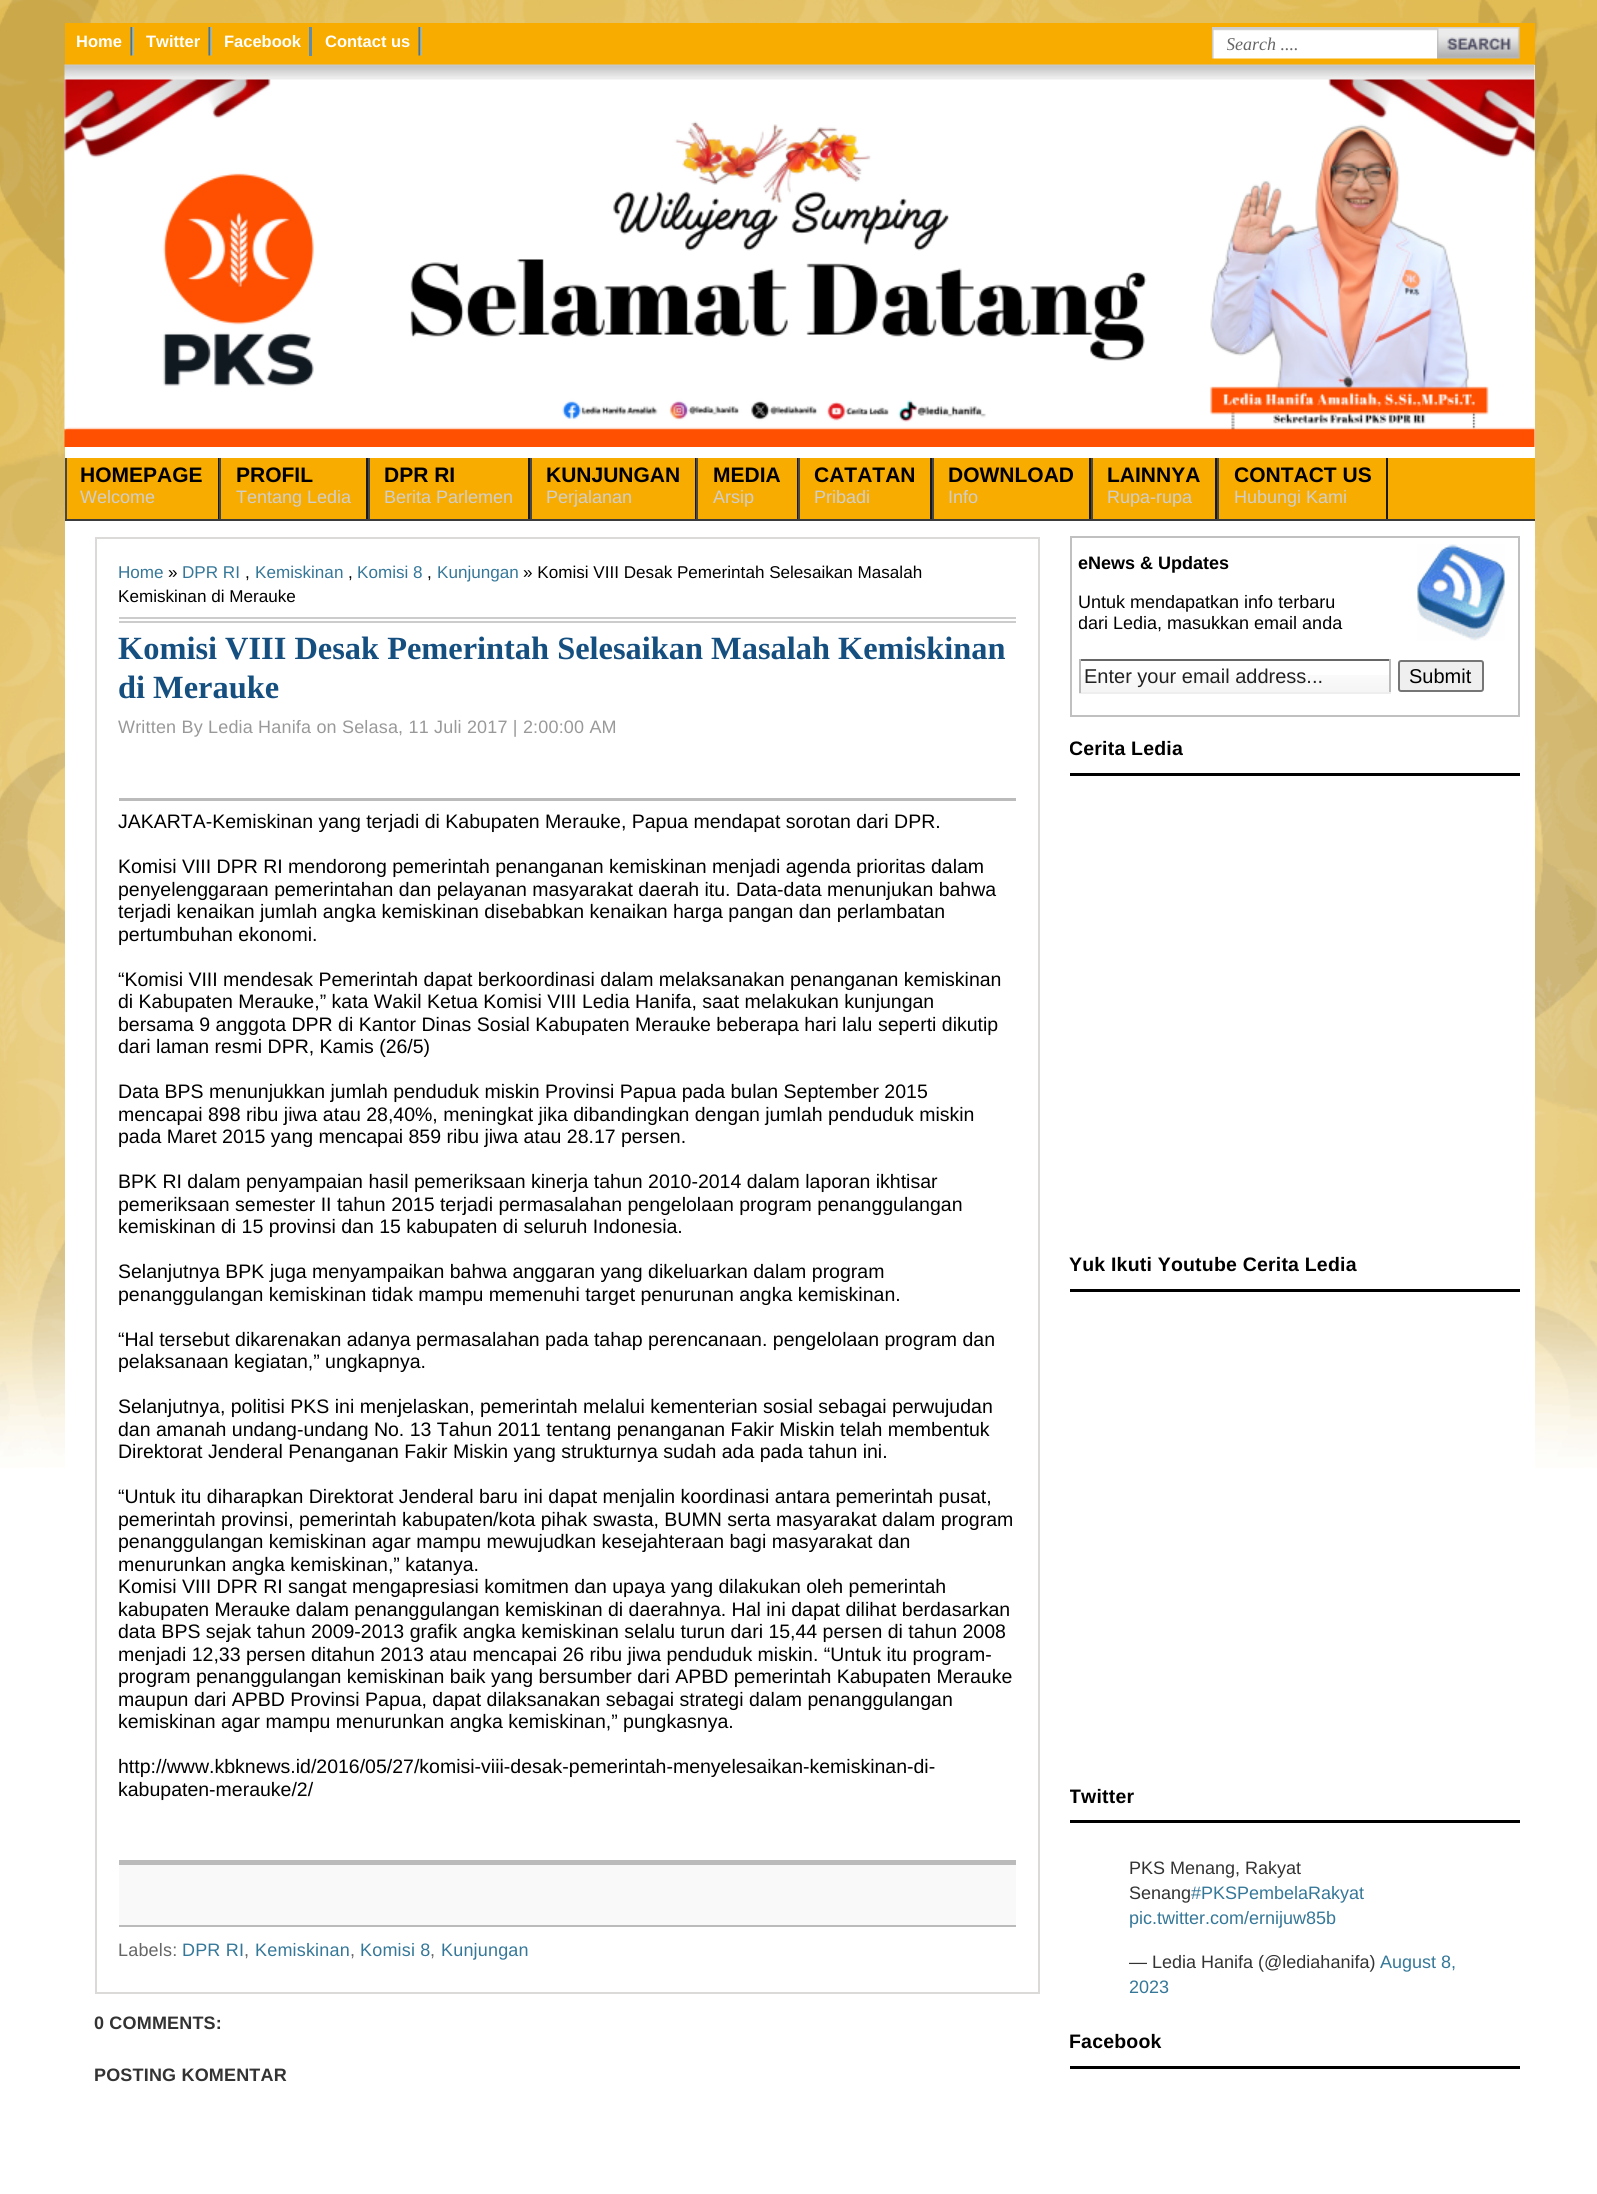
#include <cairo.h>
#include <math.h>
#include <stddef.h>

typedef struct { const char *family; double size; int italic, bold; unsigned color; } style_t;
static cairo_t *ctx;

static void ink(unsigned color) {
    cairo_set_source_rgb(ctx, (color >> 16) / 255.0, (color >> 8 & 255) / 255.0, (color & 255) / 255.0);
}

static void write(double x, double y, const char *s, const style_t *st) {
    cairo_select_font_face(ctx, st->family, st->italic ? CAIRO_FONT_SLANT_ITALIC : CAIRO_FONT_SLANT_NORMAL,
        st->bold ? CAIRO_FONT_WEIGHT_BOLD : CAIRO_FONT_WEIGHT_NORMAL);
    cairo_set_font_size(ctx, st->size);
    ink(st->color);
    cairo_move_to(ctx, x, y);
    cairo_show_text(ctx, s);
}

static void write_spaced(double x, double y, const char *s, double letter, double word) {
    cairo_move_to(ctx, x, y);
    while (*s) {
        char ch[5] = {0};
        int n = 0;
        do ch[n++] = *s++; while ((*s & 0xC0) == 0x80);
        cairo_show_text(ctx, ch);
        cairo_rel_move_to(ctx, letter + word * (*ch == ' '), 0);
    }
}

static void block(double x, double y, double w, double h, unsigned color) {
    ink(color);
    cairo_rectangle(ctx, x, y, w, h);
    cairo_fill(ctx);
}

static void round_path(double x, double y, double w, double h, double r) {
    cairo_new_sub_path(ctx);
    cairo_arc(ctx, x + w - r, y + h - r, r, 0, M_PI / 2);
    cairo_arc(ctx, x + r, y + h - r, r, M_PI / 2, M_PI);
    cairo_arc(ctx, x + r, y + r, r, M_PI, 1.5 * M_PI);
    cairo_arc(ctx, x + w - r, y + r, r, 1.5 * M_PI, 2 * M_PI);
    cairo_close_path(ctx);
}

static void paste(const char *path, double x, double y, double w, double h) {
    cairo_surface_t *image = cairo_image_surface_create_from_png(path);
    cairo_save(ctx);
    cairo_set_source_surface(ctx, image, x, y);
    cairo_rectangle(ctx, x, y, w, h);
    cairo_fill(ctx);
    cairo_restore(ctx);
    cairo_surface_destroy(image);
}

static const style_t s1 = {"Liberation Sans", 16.5, 0, 1, 0xffffff};
static const style_t s2 = {"Liberation Serif", 18, 1, 0, 0x666666};
static const style_t s3 = {"Liberation Sans", 21, 0, 1, 0x000000};
static const style_t s4 = {"Liberation Sans", 18, 0, 0, 0xcececf};
static const style_t s5 = {"Liberation Sans", 17.1, 0, 0, 0x357798};
static const style_t s6 = {"Liberation Sans", 17.1, 0, 0, 0x000000};
static const style_t s7 = {"Liberation Serif", 32.4, 0, 1, 0x154f80};
static const style_t s8 = {"Liberation Sans", 19.5, 0, 0, 0x000000};
static const style_t s9 = {"Liberation Sans", 18, 0, 1, 0x000000};
static const style_t s10 = {"Liberation Sans", 18, 0, 0, 0x000000};
static const style_t s11 = {"Liberation Sans", 20, 0, 0, 0x222222};
static const style_t s12 = {"Liberation Sans", 20, 0, 0, 0x000000};
static const style_t s13 = {"Liberation Sans", 18, 0, 0, 0x333333};
static const style_t s14 = {"Liberation Sans", 18, 0, 0, 0x357798};

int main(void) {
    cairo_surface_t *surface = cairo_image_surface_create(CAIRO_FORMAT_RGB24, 1597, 2194);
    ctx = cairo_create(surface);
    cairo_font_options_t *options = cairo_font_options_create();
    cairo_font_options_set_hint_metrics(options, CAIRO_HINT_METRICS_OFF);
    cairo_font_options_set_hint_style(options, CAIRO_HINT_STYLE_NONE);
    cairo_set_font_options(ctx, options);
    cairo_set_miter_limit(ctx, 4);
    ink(0xffffff);
    cairo_paint(ctx);
    paste("pic1.png", 0, 0, 1597, 1468);
    block(65, 65, 1470, 1403, 0xffffff);
    block(65, 23, 1470, 42, 0xf8ac00);
    paste("pic2.png", 130, 27, 4, 29);
    write(76, 47, "Home", &s1);
    paste("pic2.png", 208, 27, 4, 29);
    write(146, 47, "Twitter", &s1);
    block(309, 27, 3, 29, 0x5b8cb6);
    write(224, 47, "Facebook", &s1);
    paste("pic2.png", 418, 27, 4, 29);
    write(325, 47, "Contact us", &s1);
    paste("pic3.png", 1212, 27, 225, 32);
    cairo_save(ctx);
    cairo_rectangle(ctx, 1227, 33, 195, 23);
    cairo_clip(ctx);
    write(1226, 50, "Search ....", &s2);
    cairo_restore(ctx);
    paste("pic4.png", 1437, 27, 83, 32);
    paste("pic5.png", 64, 64, 1471, 194);
    paste("pic6.png", 64, 79, 1471, 368);
    block(67, 458, 1468, 61, 0xf8ac00);
    block(218, 458, 1, 61, 0x191919);
    block(65, 458, 2, 61, 0x484747);
    write(80, 482, "HOMEPAGE", &s3);
    write(80, 503, "Welcome", &s4);
    block(366, 458, 2, 61, 0x191919);
    block(219, 458, 2, 61, 0x484747);
    write(236, 482, "PROFIL", &s3);
    write(236, 503, "Tentang Ledia", &s4);
    block(528, 458, 2, 61, 0x191919);
    block(368, 458, 2, 61, 0x484747);
    write(384, 482, "DPR RI", &s3);
    write(384, 503, "Berita Parlemen", &s4);
    block(695, 458, 1, 61, 0x191919);
    block(530, 458, 2, 61, 0x484747);
    write(546, 482, "KUNJUNGAN", &s3);
    write(546, 503, "Perjalanan", &s4);
    block(797, 458, 1, 61, 0x191919);
    block(696, 458, 2, 61, 0x484747);
    write(713, 482, "MEDIA", &s3);
    write(713, 503, "Arsip", &s4);
    block(930, 458, 2, 61, 0x191919);
    block(798, 458, 2, 61, 0x484747);
    write(814, 482, "CATATAN", &s3);
    write(814, 503, "Pribadi", &s4);
    block(1089, 458, 2, 61, 0x191919);
    block(932, 458, 2, 61, 0x484747);
    write(948, 482, "DOWNLOAD", &s3);
    write(948, 503, "Info", &s4);
    block(1215, 458, 2, 61, 0x191919);
    block(1091, 458, 2, 61, 0x484747);
    write(1107, 482, "LAINNYA", &s3);
    write(1107, 503, "Rupa-rupa", &s4);
    block(1386, 458, 2, 61, 0x191919);
    block(1217, 458, 2, 61, 0x484747);
    write(1234, 482, "CONTACT US", &s3);
    write(1234, 503, "Hubungi Kami", &s4);
    block(65, 519, 1470, 2, 0x3b3b3b);
    cairo_rectangle(ctx, 96, 538, 943, 1455);
    ink(0xdcd9d9);
    cairo_stroke(ctx);
    block(119, 617, 897, 2, 0xcccccc);
    block(119, 621, 897, 2, 0xcccccc);
    write(118, 578, "Home", &s5);
    write(168, 578, "»", &s6);
    write(182, 578, "DPR RI", &s5);
    write(255, 578, "Kemiskinan", &s5);
    write(357, 578, "Komisi 8", &s5);
    write(437, 578, "Kunjungan", &s5);
    write(523, 578, "» Komisi VIII Desak Pemerintah Selesaikan Masalah", &s6);
    write(245, 578, ",", &s6);
    write(348, 578, ",", &s6);
    write(427, 578, ",", &s6);
    write(118, 602, "Kemiskinan di Merauke", &s6);
    write(118, 659, "Komisi VIII Desak Pemerintah Selesaikan Masalah Kemiskinan", &s7);
    write(118, 698, "di Merauke", &s7);
    cairo_select_font_face(ctx, "Liberation Sans", CAIRO_FONT_SLANT_NORMAL, CAIRO_FONT_WEIGHT_NORMAL);
    cairo_set_font_size(ctx, 18);
    ink(0x999999);
    write_spaced(118, 733, "Written By Ledia Hanifa on Selasa, 11 Juli 2017 | 2:00:00 AM", 0.18, 0);
    block(119, 798, 897, 3, 0xbbbbbb);
    write(118, 828, "JAKARTA-Kemiskinan yang terjadi di Kabupaten Merauke, Papua mendapat sorotan dari DPR.", &s8);
    write(118, 873, "Komisi VIII DPR RI mendorong pemerintah penanganan kemiskinan menjadi agenda prioritas dalam", &s8);
    write(118, 896, "penyelenggaraan pemerintahan dan pelayanan masyarakat daerah itu. Data-data menunjukan bahwa", &s8);
    write(118, 918, "terjadi kenaikan jumlah angka kemiskinan disebabkan kenaikan harga pangan dan perlambatan", &s8);
    write(118, 941, "pertumbuhan ekonomi.", &s8);
    write(118, 986, "“Komisi VIII mendesak Pemerintah dapat berkoordinasi dalam melaksanakan penanganan kemiskinan", &s8);
    write(118, 1008, "di Kabupaten Merauke,” kata Wakil Ketua Komisi VIII Ledia Hanifa, saat melakukan kunjungan", &s8);
    write(118, 1031, "bersama 9 anggota DPR di Kantor Dinas Sosial Kabupaten Merauke beberapa hari lalu seperti dikutip", &s8);
    write(118, 1053, "dari laman resmi DPR, Kamis (26/5)", &s8);
    write(118, 1098, "Data BPS menunjukkan jumlah penduduk miskin Provinsi Papua pada bulan September 2015", &s8);
    write(118, 1121, "mencapai 898 ribu jiwa atau 28,40%, meningkat jika dibandingkan dengan jumlah penduduk miskin", &s8);
    write(118, 1143, "pada Maret 2015 yang mencapai 859 ribu jiwa atau 28.17 persen.", &s8);
    write(118, 1188, "BPK RI dalam penyampaian hasil pemeriksaan kinerja tahun 2010-2014 dalam laporan ikhtisar", &s8);
    write(118, 1211, "pemeriksaan semester II tahun 2015 terjadi permasalahan pengelolaan program penanggulangan", &s8);
    write(118, 1233, "kemiskinan di 15 provinsi dan 15 kabupaten di seluruh Indonesia.", &s8);
    write(118, 1278, "Selanjutnya BPK juga menyampaikan bahwa anggaran yang dikeluarkan dalam program", &s8);
    write(118, 1301, "penanggulangan kemiskinan tidak mampu memenuhi target penurunan angka kemiskinan.", &s8);
    write(118, 1346, "“Hal tersebut dikarenakan adanya permasalahan pada tahap perencanaan. pengelolaan program dan", &s8);
    write(118, 1368, "pelaksanaan kegiatan,” ungkapnya.", &s8);
    write(118, 1413, "Selanjutnya, politisi PKS ini menjelaskan, pemerintah melalui kementerian sosial sebagai perwujudan", &s8);
    write(118, 1436, "dan amanah undang-undang No. 13 Tahun 2011 tentang penanganan Fakir Miskin telah membentuk", &s8);
    write(118, 1458, "Direktorat Jenderal Penanganan Fakir Miskin yang strukturnya sudah ada pada tahun ini.", &s8);
    write(118, 1503, "“Untuk itu diharapkan Direktorat Jenderal baru ini dapat menjalin koordinasi antara pemerintah pusat,", &s8);
    write(118, 1526, "pemerintah provinsi, pemerintah kabupaten/kota pihak swasta, BUMN serta masyarakat dalam program", &s8);
    write(118, 1548, "penanggulangan kemiskinan agar mampu mewujudkan kesejahteraan bagi masyarakat dan", &s8);
    write(118, 1571, "menurunkan angka kemiskinan,” katanya.", &s8);
    write(118, 1593, "Komisi VIII DPR RI sangat mengapresiasi komitmen dan upaya yang dilakukan oleh pemerintah", &s8);
    write(118, 1616, "kabupaten Merauke dalam penanggulangan kemiskinan di daerahnya. Hal ini dapat dilihat berdasarkan", &s8);
    write(118, 1638, "data BPS sejak tahun 2009-2013 grafik angka kemiskinan selalu turun dari 15,44 persen di tahun 2008", &s8);
    write(118, 1661, "menjadi 12,33 persen ditahun 2013 atau mencapai 26 ribu jiwa penduduk miskin. “Untuk itu program-", &s8);
    write(118, 1683, "program penanggulangan kemiskinan baik yang bersumber dari APBD pemerintah Kabupaten Merauke", &s8);
    write(118, 1706, "maupun dari APBD Provinsi Papua, dapat dilaksanakan sebagai strategi dalam penanggulangan", &s8);
    write(118, 1728, "kemiskinan agar mampu menurunkan angka kemiskinan,” pungkasnya.", &s8);
    write(118, 1773, "http://www.kbknews.id/2016/05/27/komisi-viii-desak-pemerintah-menyelesaikan-kemiskinan-di-", &s8);
    write(118, 1796, "kabupaten-merauke/2/", &s8);
    block(119, 1865, 897, 60, 0xf9f9f9);
    block(119, 1860, 897, 5, 0xbbbbbb);
    block(119, 1925, 897, 2, 0xbbbbbb);
    cairo_set_font_size(ctx, 18);
    ink(0x666666);
    write_spaced(118, 1956, "Labels:", 0.18, 0);
    ink(0x357798);
    write_spaced(182, 1956, "DPR RI", 0.18, 0);
    write_spaced(255, 1956, "Kemiskinan", 0.18, 0);
    write_spaced(360, 1956, "Komisi 8", 0.18, 0);
    write_spaced(441, 1956, "Kunjungan", 0.18, 0);
    ink(0x666666);
    write_spaced(244, 1956, ",", 0.18, 0);
    write_spaced(350, 1956, ",", 0.18, 0);
    write_spaced(430, 1956, ",", 0.18, 0);
    cairo_select_font_face(ctx, "Liberation Sans", CAIRO_FONT_SLANT_NORMAL, CAIRO_FONT_WEIGHT_BOLD);
    ink(0x333333);
    write_spaced(94, 2029, "0 COMMENTS:", 0.18, 0);
    write_spaced(94, 2081, "POSTING KOMENTAR", 0.18, 0);
    paste("pic7.png", 1417, 544, 88, 97);
    cairo_rectangle(ctx, 1071, 537, 448, 179);
    ink(0xc0c0c0);
    cairo_stroke(ctx);
    write(1078, 569, "eNews & Updates", &s9);
    write(1078, 608, "Untuk mendapatkan info terbaru", &s10);
    cairo_save(ctx);
    cairo_rectangle(ctx, 1079, 573, 432, 128);
    cairo_clip(ctx);
    write(1078, 629, "dari Ledia, masukkan email anda", &s10);
    cairo_restore(ctx);
    paste("pic8.png", 1081, 675, 308, 17);
    block(1079, 659, 312, 2, 0x666666);
    block(1389, 659, 2, 34, 0xbbbbbb);
    block(1079, 692, 312, 2, 0xeeeeee);
    block(1079, 659, 2, 34, 0xbbbbbb);
    write(1084, 683, "Enter your email address...", &s11);
    ink(0xefefef);
    round_path(1399, 661, 84, 30, 2);
    cairo_fill_preserve(ctx);
    ink(0x767676);
    cairo_stroke(ctx);
    write(1409, 683, "Submit", &s12);
    block(1070, 773, 450, 3, 0x000000);
    cairo_save(ctx);
    cairo_rectangle(ctx, 1070, 536, 450, 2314);
    cairo_clip(ctx);
    cairo_select_font_face(ctx, "Liberation Sans", CAIRO_FONT_SLANT_NORMAL, CAIRO_FONT_WEIGHT_BOLD);
    cairo_set_font_size(ctx, 19.5);
    write_spaced(1069, 755, "Cerita Ledia", 0.2, 0);
    cairo_restore(ctx);
    block(1070, 1289, 450, 3, 0x000000);
    cairo_select_font_face(ctx, "Liberation Sans", CAIRO_FONT_SLANT_NORMAL, CAIRO_FONT_WEIGHT_BOLD);
    cairo_set_font_size(ctx, 19.5);
    write_spaced(1069, 1271, "Yuk Ikuti Youtube Cerita Ledia", 0.2, 0);
    block(1070, 1820, 450, 3, 0x000000);
    cairo_save(ctx);
    cairo_rectangle(ctx, 1070, 536, 450, 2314);
    cairo_clip(ctx);
    write_spaced(1069, 1803, "Twitter", 0.2, 0);
    cairo_restore(ctx);
    write(1129, 1874, "PKS Menang, Rakyat", &s13);
    write(1129, 1899, "Senang", &s13);
    write(1191, 1899, "#PKSPembelaRakyat", &s14);
    write(1129, 1924, "pic.twitter.com/ernijuw85b", &s14);
    write(1129, 1968, "— Ledia Hanifa (@lediahanifa)", &s13);
    write(1380, 1968, "August 8,", &s14);
    write(1129, 1993, "2023", &s14);
    block(1070, 2066, 450, 3, 0x000000);
    cairo_select_font_face(ctx, "Liberation Sans", CAIRO_FONT_SLANT_NORMAL, CAIRO_FONT_WEIGHT_BOLD);
    cairo_set_font_size(ctx, 19.5);
    write_spaced(1069, 2048, "Facebook", 0.2, 0);
    cairo_surface_write_to_png(surface, "screenshot.png");
    cairo_font_options_destroy(options);
    cairo_destroy(ctx);
    cairo_surface_destroy(surface);
    return 0;
}
